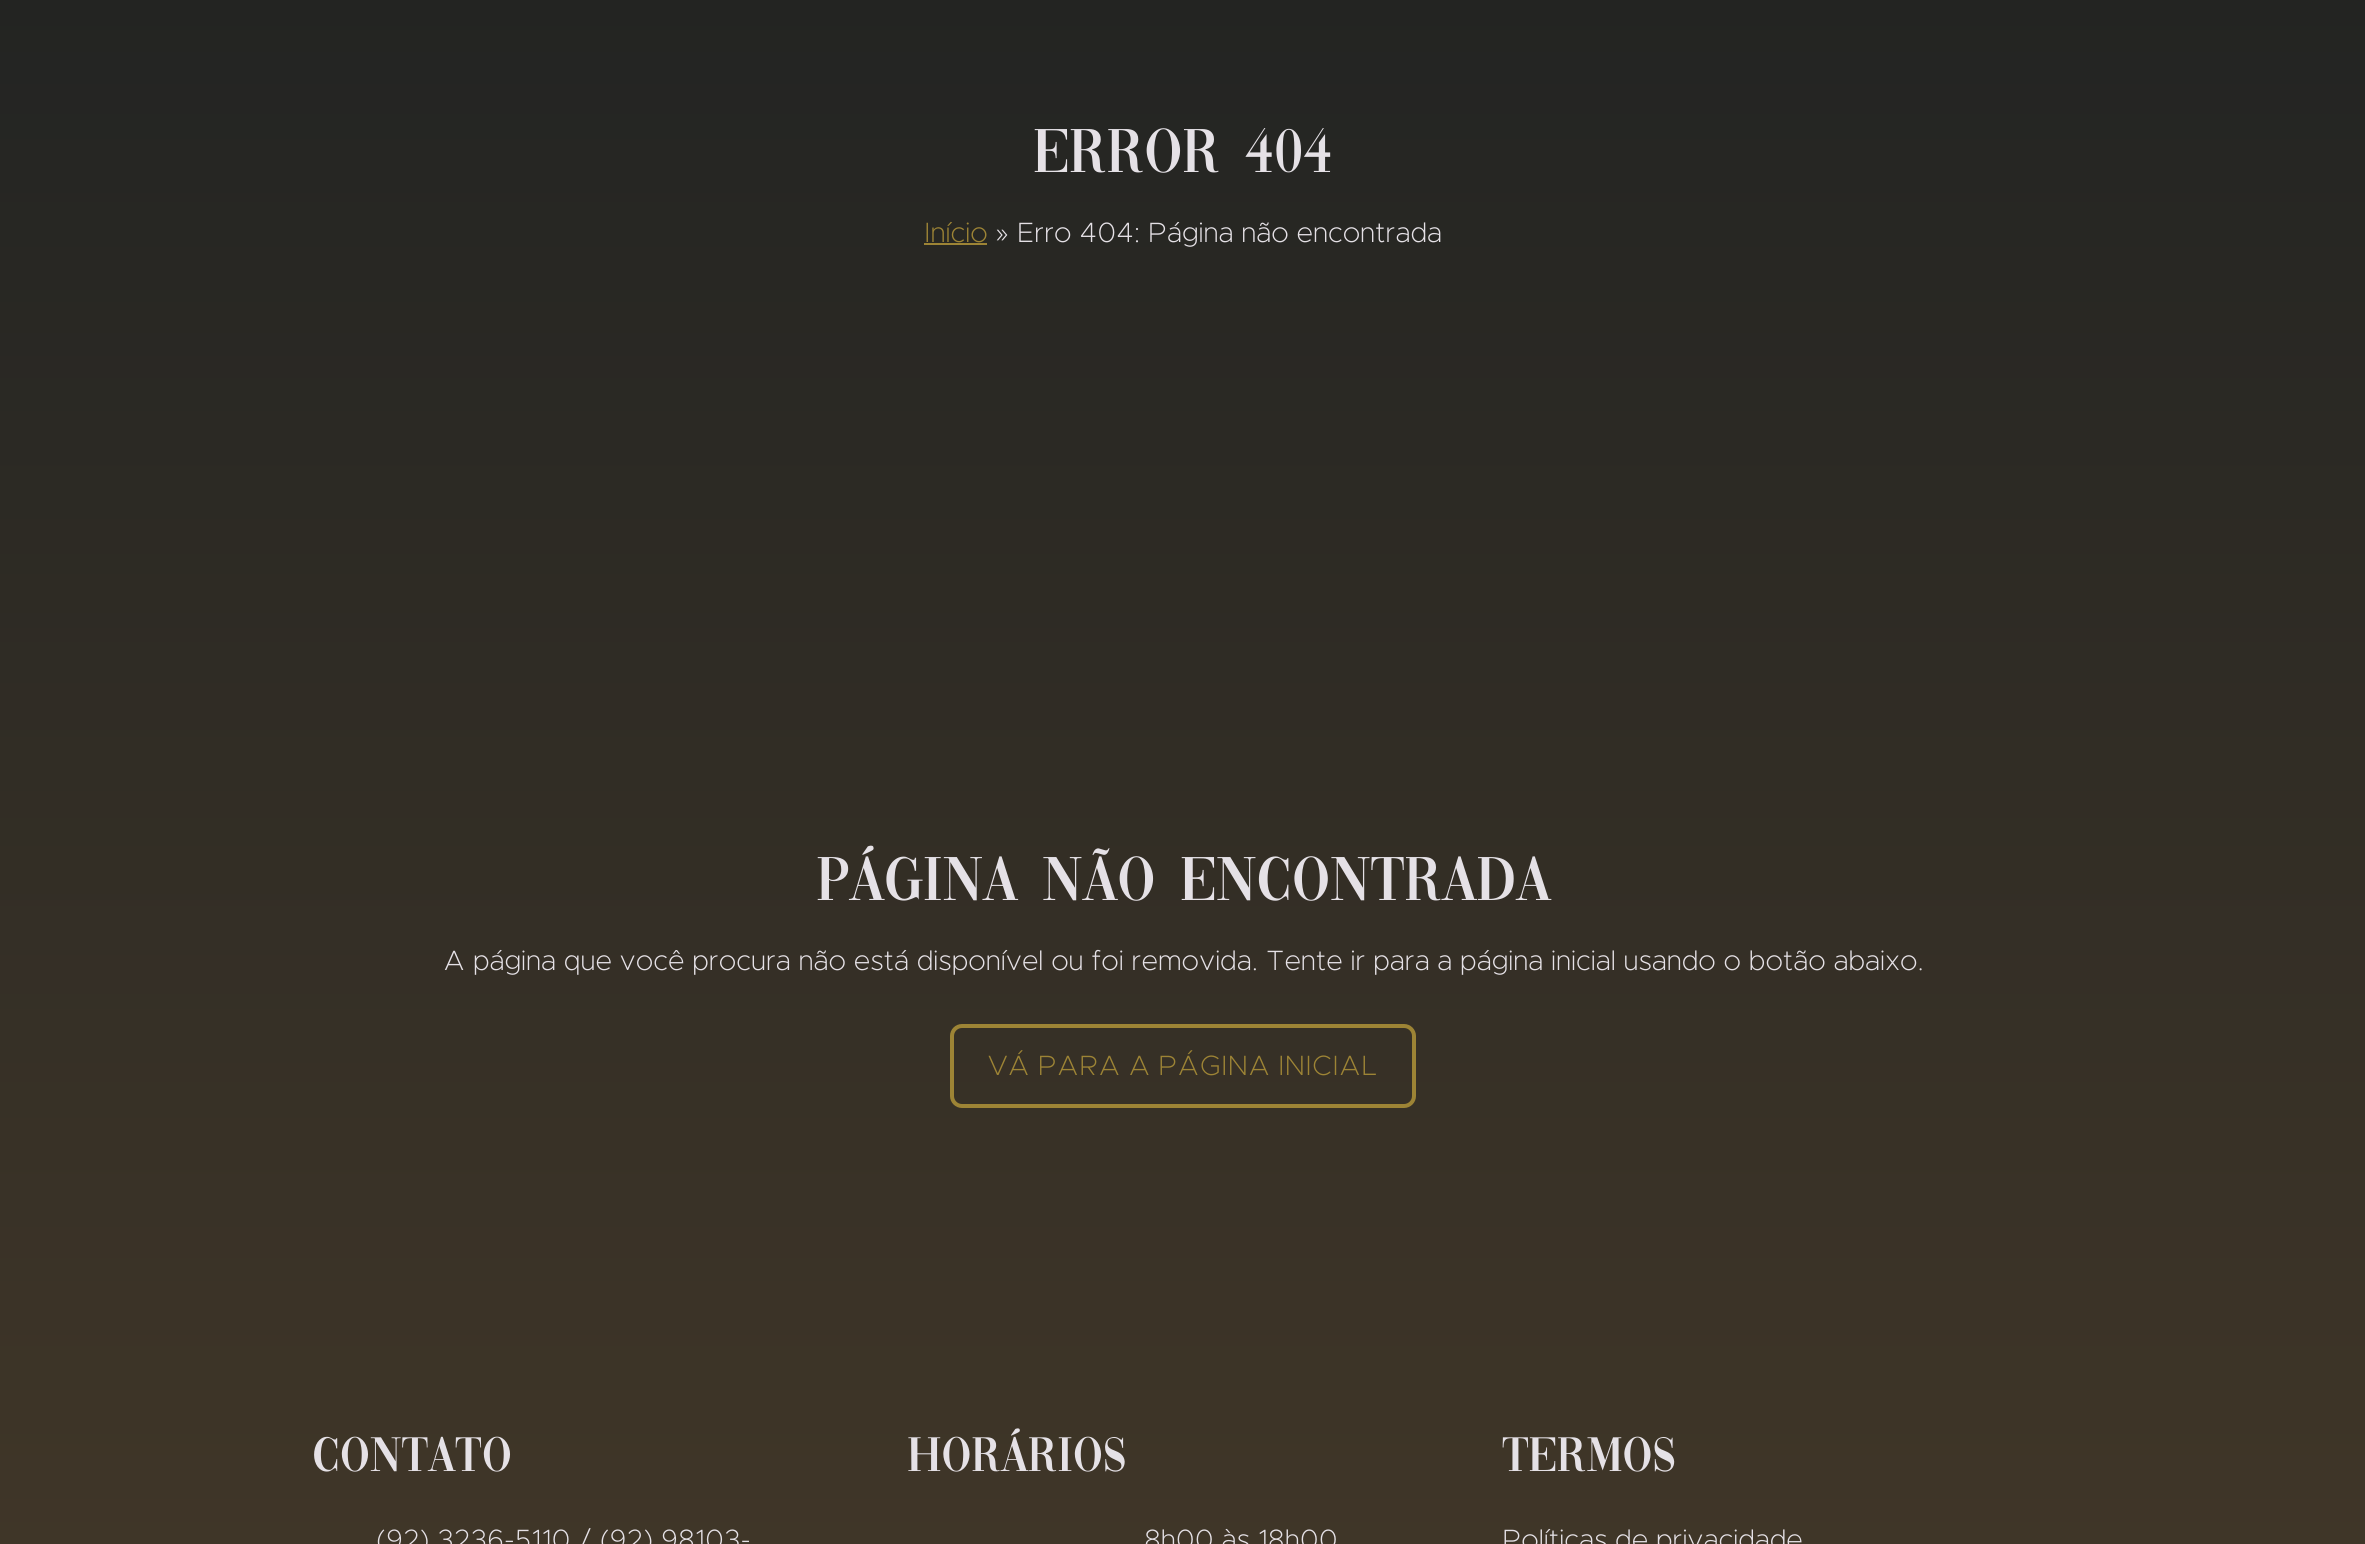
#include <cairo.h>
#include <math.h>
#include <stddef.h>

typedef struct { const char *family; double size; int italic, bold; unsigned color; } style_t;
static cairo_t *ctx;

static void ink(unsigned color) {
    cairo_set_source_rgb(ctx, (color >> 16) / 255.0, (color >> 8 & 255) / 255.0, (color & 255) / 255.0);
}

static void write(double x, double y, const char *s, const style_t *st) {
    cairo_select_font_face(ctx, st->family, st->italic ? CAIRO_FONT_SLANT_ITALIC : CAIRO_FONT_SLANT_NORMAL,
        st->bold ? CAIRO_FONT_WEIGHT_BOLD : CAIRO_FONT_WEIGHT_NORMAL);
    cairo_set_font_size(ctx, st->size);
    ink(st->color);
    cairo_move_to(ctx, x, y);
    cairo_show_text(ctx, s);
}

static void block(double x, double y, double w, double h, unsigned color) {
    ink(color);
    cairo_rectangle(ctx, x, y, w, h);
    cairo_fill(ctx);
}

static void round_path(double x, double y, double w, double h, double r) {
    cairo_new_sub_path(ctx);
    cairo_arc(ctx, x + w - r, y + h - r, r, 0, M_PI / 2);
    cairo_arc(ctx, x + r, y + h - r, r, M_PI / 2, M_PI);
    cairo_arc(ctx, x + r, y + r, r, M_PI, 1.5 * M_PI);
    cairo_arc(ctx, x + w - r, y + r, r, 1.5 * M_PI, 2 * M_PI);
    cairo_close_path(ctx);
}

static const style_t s1 = {"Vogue", 64.4, 0, 0, 0xe5e1e6};
static const style_t s2 = {"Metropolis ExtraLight", 28, 0, 0, 0x9d8435};
static const style_t s3 = {"Metropolis ExtraLight", 28, 0, 0, 0xe5e1e6};
static const style_t s4 = {"Vogue", 50.5, 0, 0, 0xe5e1e6};

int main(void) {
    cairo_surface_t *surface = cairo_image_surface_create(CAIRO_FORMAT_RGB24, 2365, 1544);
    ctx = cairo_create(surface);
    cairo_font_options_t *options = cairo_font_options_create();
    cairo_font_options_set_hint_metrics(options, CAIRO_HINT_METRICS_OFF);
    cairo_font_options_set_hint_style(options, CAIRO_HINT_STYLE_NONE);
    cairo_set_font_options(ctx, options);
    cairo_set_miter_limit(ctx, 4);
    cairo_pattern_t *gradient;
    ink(0xffffff);
    cairo_paint(ctx);
    gradient = cairo_pattern_create_linear(1183, -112, 1183, 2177);
    cairo_pattern_add_color_stop_rgba(gradient, 0, 0.129, 0.137, 0.133, 1);
    cairo_pattern_add_color_stop_rgba(gradient, 1, 0.294, 0.239, 0.165, 1);
    cairo_set_source(ctx, gradient);
    cairo_pattern_destroy(gradient);
    cairo_rectangle(ctx, 0, 0, 2365, 1544);
    cairo_fill(ctx);
    write(1033, 172, "Error 404", &s1);
    write(924, 242, "Início", &s2);
    block(924, 243, 63, 2, 0x9d8435);
    write(995, 242, "» Erro 404: Página não encontrada", &s3);
    write(816, 900, "Página não encontrada", &s1);
    write(443, 970, "A página que você procura não está disponível ou foi removida. Tente ir para a página inicial usando o botão abaixo.", &s3);
    round_path(952, 1026, 462, 80, 10);
    ink(0x9d8435);
    cairo_set_line_width(ctx, 4);
    cairo_stroke(ctx);
    write(988, 1075, "VÁ PARA A PÁGINA INICIAL", &s2);
    write(312, 1471, "Contato", &s4);
    write(376, 1549, "(92) 3236-5110 / (92) 98103-", &s3);
    write(907, 1471, "Horários", &s4);
    write(1144, 1549, "8h00 às 18h00", &s3);
    write(1502, 1471, "Termos", &s4);
    write(1502, 1549, "Políticas de privacidade", &s3);
    cairo_surface_write_to_png(surface, "screenshot.png");
    cairo_font_options_destroy(options);
    cairo_destroy(ctx);
    cairo_surface_destroy(surface);
    return 0;
}
